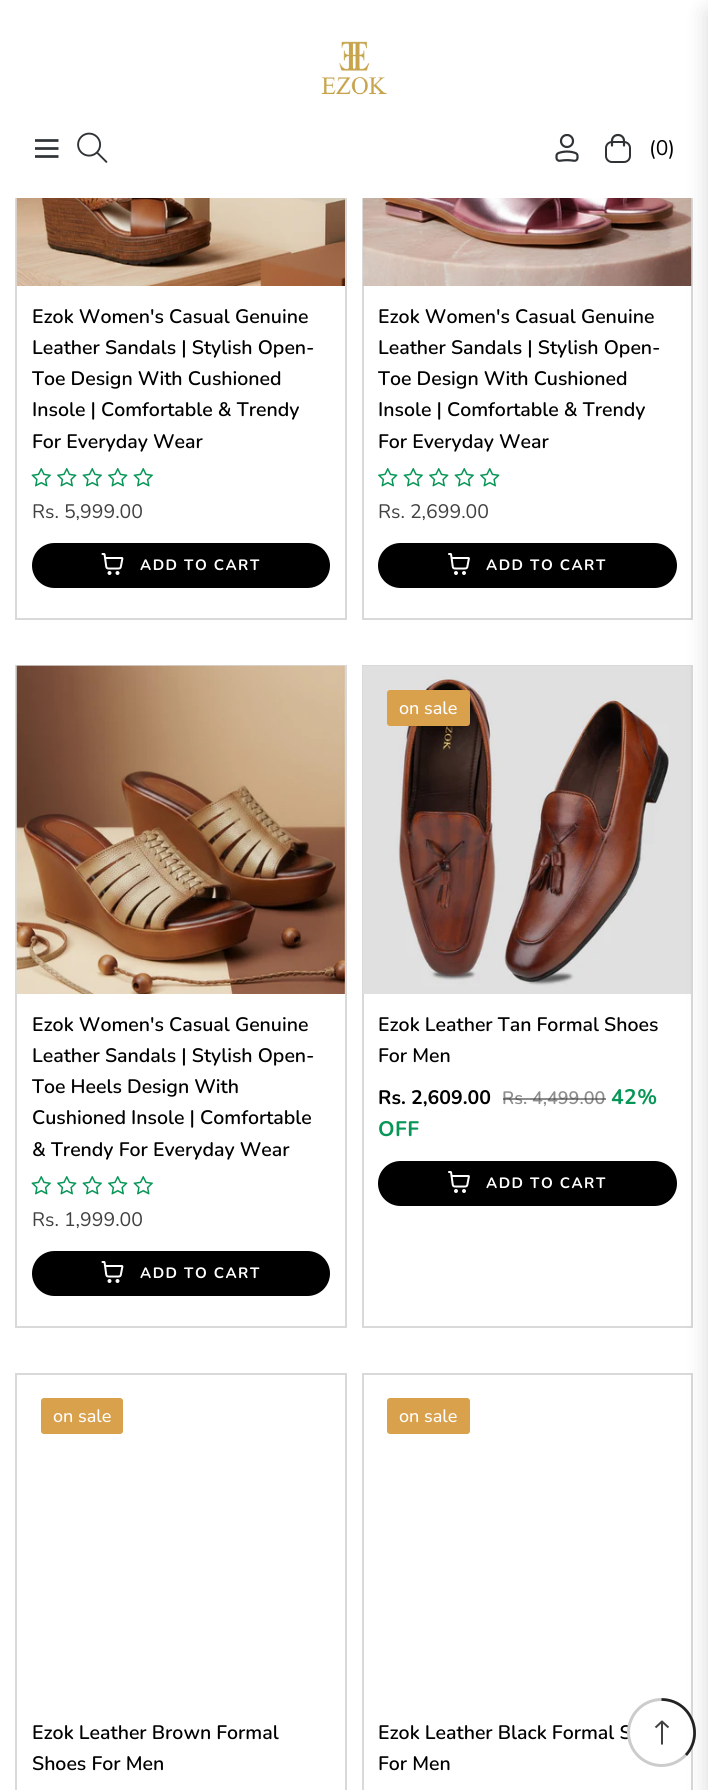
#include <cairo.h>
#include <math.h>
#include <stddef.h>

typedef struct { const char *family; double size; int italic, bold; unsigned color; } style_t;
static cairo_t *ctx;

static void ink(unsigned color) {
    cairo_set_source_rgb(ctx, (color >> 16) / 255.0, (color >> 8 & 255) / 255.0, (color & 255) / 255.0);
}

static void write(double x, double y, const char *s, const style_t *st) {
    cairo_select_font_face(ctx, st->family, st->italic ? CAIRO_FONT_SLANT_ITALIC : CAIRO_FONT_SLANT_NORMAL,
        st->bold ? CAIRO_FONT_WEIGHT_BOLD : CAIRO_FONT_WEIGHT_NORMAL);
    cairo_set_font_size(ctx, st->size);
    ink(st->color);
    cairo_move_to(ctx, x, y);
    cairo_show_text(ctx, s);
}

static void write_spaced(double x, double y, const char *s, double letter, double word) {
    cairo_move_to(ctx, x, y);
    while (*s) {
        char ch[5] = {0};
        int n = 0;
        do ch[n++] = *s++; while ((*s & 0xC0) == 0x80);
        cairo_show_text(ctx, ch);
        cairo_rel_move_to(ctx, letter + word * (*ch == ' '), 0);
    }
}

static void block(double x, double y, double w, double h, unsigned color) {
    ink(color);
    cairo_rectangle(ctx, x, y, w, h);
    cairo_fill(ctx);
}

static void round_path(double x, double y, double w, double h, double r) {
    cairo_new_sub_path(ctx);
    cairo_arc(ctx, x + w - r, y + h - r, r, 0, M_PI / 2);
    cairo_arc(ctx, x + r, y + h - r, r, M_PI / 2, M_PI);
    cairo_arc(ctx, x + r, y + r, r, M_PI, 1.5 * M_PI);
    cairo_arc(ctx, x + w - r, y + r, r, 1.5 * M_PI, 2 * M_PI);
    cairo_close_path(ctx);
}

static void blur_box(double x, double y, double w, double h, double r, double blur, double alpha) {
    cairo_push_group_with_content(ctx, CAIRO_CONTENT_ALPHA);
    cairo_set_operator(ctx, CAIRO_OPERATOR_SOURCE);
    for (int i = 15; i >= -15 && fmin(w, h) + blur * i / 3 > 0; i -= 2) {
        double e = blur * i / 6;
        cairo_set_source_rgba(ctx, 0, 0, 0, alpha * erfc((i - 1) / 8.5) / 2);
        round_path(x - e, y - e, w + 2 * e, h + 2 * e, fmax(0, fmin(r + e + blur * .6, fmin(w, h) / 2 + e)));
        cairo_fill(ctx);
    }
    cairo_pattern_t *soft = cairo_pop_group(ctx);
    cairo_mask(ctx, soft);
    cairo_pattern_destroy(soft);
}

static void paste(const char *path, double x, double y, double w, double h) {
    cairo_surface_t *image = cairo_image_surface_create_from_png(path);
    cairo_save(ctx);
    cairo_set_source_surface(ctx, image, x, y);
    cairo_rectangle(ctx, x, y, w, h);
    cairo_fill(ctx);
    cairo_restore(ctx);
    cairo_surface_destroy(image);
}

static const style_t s1 = {"Nunito", 21, 0, 0, 0x000000};
static const style_t s2 = {"Nunito SemiBold", 19.5, 0, 0, 0x000000};
static const style_t s3 = {"Nunito", 19.5, 0, 0, 0x414141};
static const style_t s4 = {"Nunito Medium", 18, 0, 0, 0xffffff};
static const style_t s5 = {"Nunito", 19.5, 0, 1, 0x000000};
static const style_t s6 = {"Nunito SemiBold", 18, 0, 0, 0x8d8d8d};

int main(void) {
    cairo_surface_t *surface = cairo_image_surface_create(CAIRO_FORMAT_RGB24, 708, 1790);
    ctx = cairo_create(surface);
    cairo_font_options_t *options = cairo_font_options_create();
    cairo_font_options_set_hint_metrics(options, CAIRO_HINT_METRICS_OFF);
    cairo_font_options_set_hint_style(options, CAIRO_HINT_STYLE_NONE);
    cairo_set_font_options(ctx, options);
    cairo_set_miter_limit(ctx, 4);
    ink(0xffffff);
    cairo_paint(ctx);
    cairo_rectangle(ctx, 16, -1, 330, 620);
    ink(0xd9d9d9);
    cairo_stroke(ctx);
    cairo_rectangle(ctx, 363, -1, 329, 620);
    cairo_stroke(ctx);
    block(15, 0, 678, 198, 0xffffff);
    paste("pic1.png", 321, 41, 66, 54);
    cairo_save(ctx);
    cairo_rectangle(ctx, 35, 137, 24, 24);
    cairo_clip(ctx);
    cairo_new_path(ctx);
    cairo_move_to(ctx, 34.5, 140.5);
    cairo_line_to(ctx, 58.5, 140.5);
    cairo_move_to(ctx, 34.5, 156.5);
    cairo_line_to(ctx, 58.5, 156.5);
    cairo_close_path(ctx);
    cairo_move_to(ctx, 34.5, 148.5);
    cairo_line_to(ctx, 58.5, 148.5);
    cairo_close_path(ctx);
    ink(0x2f3336);
    cairo_set_line_width(ctx, 2.7);
    cairo_stroke(ctx);
    cairo_restore(ctx);
    paste("pic2.png", 77, 132, 31, 31);
    paste("pic3.png", 555, 134, 24, 28);
    round_path(606, 142, 24, 20, 6);
    ink(0x2f3336);
    cairo_stroke(ctx);
    cairo_new_path(ctx);
    cairo_move_to(ctx, 624, 145.5);
    cairo_line_to(ctx, 624, 141);
    cairo_curve_to(ctx, 624, 137.5, 621.5, 135, 618, 135);
    cairo_curve_to(ctx, 614.5, 135, 612, 137.5, 612, 141);
    cairo_line_to(ctx, 612, 145.5);
    cairo_set_line_width(ctx, 2.2);
    cairo_set_line_cap(ctx, CAIRO_LINE_CAP_ROUND);
    cairo_stroke(ctx);
    write(649, 155, "(0)", &s1);
    paste("pic8.png", 363, 198, 329, 88);
    round_path(378, 543, 299, 45, 22.5);
    cairo_fill(ctx);
    cairo_rectangle(ctx, 363, 666, 329, 661);
    ink(0xd9d9d9);
    cairo_set_line_width(ctx, 2);
    cairo_set_line_cap(ctx, CAIRO_LINE_CAP_BUTT);
    cairo_stroke(ctx);
    paste("pic11.png", 363, 666, 328, 328);
    ink(0x000000);
    round_path(378, 1161, 299, 45, 22.5);
    cairo_fill(ctx);
    cairo_rectangle(ctx, 363, 1374, 329, 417);
    ink(0xd9d9d9);
    cairo_stroke(ctx);
    write(378, 1739, "Ezok Leather Black Formal S", &s2);
    ink(0xffffff);
    cairo_new_path(ctx);
    cairo_arc(ctx, 661.5, 1732.5, 34.5, 0, 2 * M_PI);
    cairo_fill(ctx);
    cairo_arc(ctx, 661.5, 1732.5, 33, 0, 2 * M_PI);
    cairo_set_source_rgba(ctx, 0, 0, 0, 0.2);
    cairo_set_line_width(ctx, 3);
    cairo_stroke(ctx);
    cairo_new_path(ctx);
    cairo_move_to(ctx, 661.5, 1699.5);
    cairo_curve_to(ctx, 690.5, 1699.5, 705, 1734, 686, 1755);
    ink(0x222222);
    cairo_set_line_width(ctx, 2.7);
    cairo_stroke(ctx);
    ink(0x000000);
    blur_box(708, 12, 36, 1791, 0, 12, 0.15);
    paste("pic4.png", 16, 198, 329, 88);
    write(32, 323, "Ezok Women's Casual Genuine", &s2);
    write(32, 354, "Leather Sandals | Stylish Open-", &s2);
    write(32, 385, "Toe Design With Cushioned", &s2);
    write(32, 416, "Insole | Comfortable & Trendy", &s2);
    write(32, 448, "For Everyday Wear", &s2);
    paste("pic5.png", 31, 467, 20, 20);
    paste("pic6.png", 57, 467, 20, 20);
    paste("pic5.png", 82, 467, 20, 20);
    paste("pic6.png", 108, 467, 20, 20);
    paste("pic5.png", 133, 467, 20, 20);
    write(32, 518, "Rs. 5,999.00", &s3);
    ink(0x000000);
    round_path(32, 543, 298, 45, 22.5);
    cairo_fill(ctx);
    paste("pic7.png", 101, 553, 23, 22);
    cairo_select_font_face(ctx, "Nunito", CAIRO_FONT_SLANT_NORMAL, CAIRO_FONT_WEIGHT_BOLD);
    cairo_set_font_size(ctx, 15);
    ink(0xffffff);
    write_spaced(140, 570, "ADD TO CART", 1.5, 0);
    write(378, 323, "Ezok Women's Casual Genuine", &s2);
    write(378, 354, "Leather Sandals | Stylish Open-", &s2);
    write(378, 385, "Toe Design With Cushioned", &s2);
    write(378, 416, "Insole | Comfortable & Trendy", &s2);
    write(378, 448, "For Everyday Wear", &s2);
    paste("pic6.png", 378, 467, 20, 20);
    paste("pic5.png", 403, 467, 20, 20);
    paste("pic6.png", 429, 467, 20, 20);
    paste("pic5.png", 454, 467, 20, 20);
    paste("pic6.png", 480, 467, 20, 20);
    write(378, 518, "Rs. 2,699.00", &s3);
    paste("pic9.png", 448, 553, 22, 22);
    cairo_select_font_face(ctx, "Nunito", CAIRO_FONT_SLANT_NORMAL, CAIRO_FONT_WEIGHT_BOLD);
    cairo_set_font_size(ctx, 15);
    ink(0xffffff);
    write_spaced(486, 570, "ADD TO CART", 1.5, 0);
    cairo_rectangle(ctx, 16, 666, 330, 661);
    ink(0xd9d9d9);
    cairo_set_line_width(ctx, 2);
    cairo_stroke(ctx);
    paste("pic10.png", 16, 665, 329, 329);
    write(32, 1031, "Ezok Women's Casual Genuine", &s2);
    write(32, 1062, "Leather Sandals | Stylish Open-", &s2);
    write(32, 1093, "Toe Heels Design With", &s2);
    write(32, 1124, "Cushioned Insole | Comfortable", &s2);
    write(32, 1156, "& Trendy For Everyday Wear", &s2);
    paste("pic5.png", 31, 1175, 20, 20);
    paste("pic6.png", 57, 1175, 20, 20);
    paste("pic5.png", 82, 1175, 20, 20);
    paste("pic6.png", 108, 1175, 20, 20);
    paste("pic5.png", 133, 1175, 20, 20);
    write(32, 1226, "Rs. 1,999.00", &s3);
    ink(0x000000);
    round_path(32, 1251, 298, 45, 22.5);
    cairo_fill(ctx);
    paste("pic7.png", 101, 1261, 23, 22);
    cairo_select_font_face(ctx, "Nunito", CAIRO_FONT_SLANT_NORMAL, CAIRO_FONT_WEIGHT_BOLD);
    cairo_set_font_size(ctx, 15);
    ink(0xffffff);
    write_spaced(140, 1278, "ADD TO CART", 1.5, 0);
    ink(0xdaa14c);
    round_path(387, 690, 83, 36, 3);
    cairo_fill(ctx);
    write(399, 714, "on sale", &s4);
    write(378, 1031, "Ezok Leather Tan Formal Shoes", &s2);
    write(378, 1062, "For Men", &s2);
    write(378, 1104, "Rs. 2,609.00", &s5);
    write(502, 1104, "Rs. 4,499.00", &s6);
    cairo_set_source_rgba(ctx, 0.255, 0.255, 0.255, 0.6);
    cairo_rectangle(ctx, 503, 1098, 103, 2);
    cairo_fill(ctx);
    cairo_select_font_face(ctx, "Nunito", CAIRO_FONT_SLANT_NORMAL, CAIRO_FONT_WEIGHT_BOLD);
    cairo_set_font_size(ctx, 21);
    ink(0x089657);
    write_spaced(611, 1104, "42%", 0.5, 0);
    write_spaced(378, 1136, "OFF", 0.5, 0);
    paste("pic9.png", 448, 1171, 22, 22);
    cairo_set_font_size(ctx, 15);
    ink(0xffffff);
    write_spaced(486, 1188, "ADD TO CART", 1.5, 0);
    cairo_rectangle(ctx, 16, 1374, 330, 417);
    ink(0xd9d9d9);
    cairo_stroke(ctx);
    ink(0xdaa14c);
    round_path(41, 1398, 82, 36, 3);
    cairo_fill(ctx);
    write(53, 1422, "on sale", &s4);
    write(32, 1739, "Ezok Leather Brown Formal", &s2);
    write(32, 1770, "Shoes For Men", &s2);
    ink(0xdaa14c);
    round_path(387, 1398, 83, 36, 3);
    cairo_fill(ctx);
    write(399, 1422, "on sale", &s4);
    write(378, 1770, "For Men", &s2);
    cairo_save(ctx);
    cairo_new_path(ctx);
    cairo_move_to(ctx, 649.5, 1744.5);
    cairo_line_to(ctx, 649.5, 1720.5);
    cairo_line_to(ctx, 673.5, 1720.5);
    cairo_line_to(ctx, 673.5, 1744.5);
    cairo_close_path(ctx);
    cairo_clip(ctx);
    cairo_new_path(ctx);
    cairo_move_to(ctx, 668.5, 1727.5);
    cairo_line_to(ctx, 662, 1721.5);
    cairo_line_to(ctx, 655.5, 1727.5);
    cairo_move_to(ctx, 662, 1721.5);
    cairo_line_to(ctx, 662, 1744.5);
    ink(0x414141);
    cairo_stroke(ctx);
    cairo_restore(ctx);
    cairo_surface_write_to_png(surface, "screenshot.png");
    cairo_font_options_destroy(options);
    cairo_destroy(ctx);
    cairo_surface_destroy(surface);
    return 0;
}
